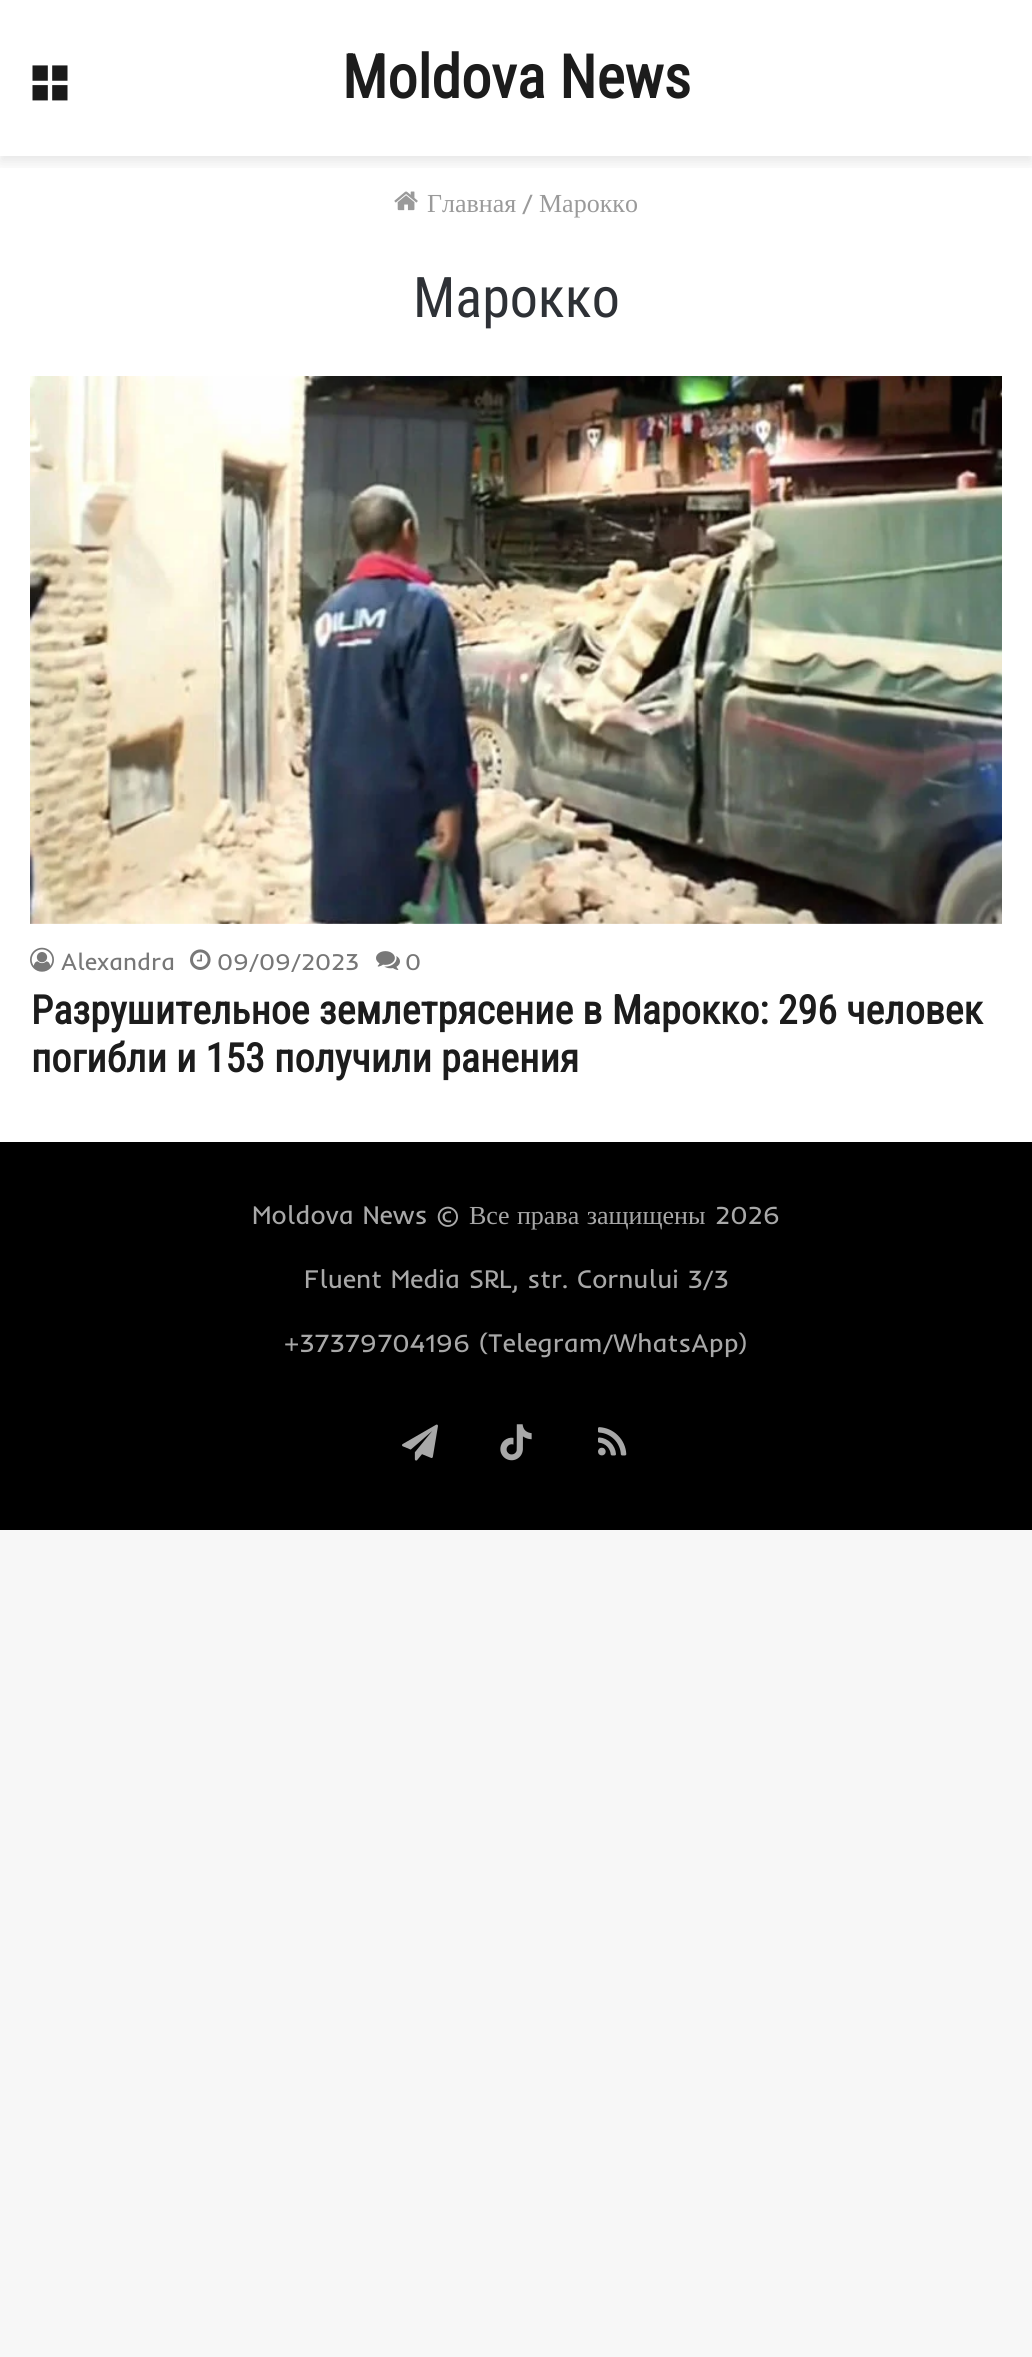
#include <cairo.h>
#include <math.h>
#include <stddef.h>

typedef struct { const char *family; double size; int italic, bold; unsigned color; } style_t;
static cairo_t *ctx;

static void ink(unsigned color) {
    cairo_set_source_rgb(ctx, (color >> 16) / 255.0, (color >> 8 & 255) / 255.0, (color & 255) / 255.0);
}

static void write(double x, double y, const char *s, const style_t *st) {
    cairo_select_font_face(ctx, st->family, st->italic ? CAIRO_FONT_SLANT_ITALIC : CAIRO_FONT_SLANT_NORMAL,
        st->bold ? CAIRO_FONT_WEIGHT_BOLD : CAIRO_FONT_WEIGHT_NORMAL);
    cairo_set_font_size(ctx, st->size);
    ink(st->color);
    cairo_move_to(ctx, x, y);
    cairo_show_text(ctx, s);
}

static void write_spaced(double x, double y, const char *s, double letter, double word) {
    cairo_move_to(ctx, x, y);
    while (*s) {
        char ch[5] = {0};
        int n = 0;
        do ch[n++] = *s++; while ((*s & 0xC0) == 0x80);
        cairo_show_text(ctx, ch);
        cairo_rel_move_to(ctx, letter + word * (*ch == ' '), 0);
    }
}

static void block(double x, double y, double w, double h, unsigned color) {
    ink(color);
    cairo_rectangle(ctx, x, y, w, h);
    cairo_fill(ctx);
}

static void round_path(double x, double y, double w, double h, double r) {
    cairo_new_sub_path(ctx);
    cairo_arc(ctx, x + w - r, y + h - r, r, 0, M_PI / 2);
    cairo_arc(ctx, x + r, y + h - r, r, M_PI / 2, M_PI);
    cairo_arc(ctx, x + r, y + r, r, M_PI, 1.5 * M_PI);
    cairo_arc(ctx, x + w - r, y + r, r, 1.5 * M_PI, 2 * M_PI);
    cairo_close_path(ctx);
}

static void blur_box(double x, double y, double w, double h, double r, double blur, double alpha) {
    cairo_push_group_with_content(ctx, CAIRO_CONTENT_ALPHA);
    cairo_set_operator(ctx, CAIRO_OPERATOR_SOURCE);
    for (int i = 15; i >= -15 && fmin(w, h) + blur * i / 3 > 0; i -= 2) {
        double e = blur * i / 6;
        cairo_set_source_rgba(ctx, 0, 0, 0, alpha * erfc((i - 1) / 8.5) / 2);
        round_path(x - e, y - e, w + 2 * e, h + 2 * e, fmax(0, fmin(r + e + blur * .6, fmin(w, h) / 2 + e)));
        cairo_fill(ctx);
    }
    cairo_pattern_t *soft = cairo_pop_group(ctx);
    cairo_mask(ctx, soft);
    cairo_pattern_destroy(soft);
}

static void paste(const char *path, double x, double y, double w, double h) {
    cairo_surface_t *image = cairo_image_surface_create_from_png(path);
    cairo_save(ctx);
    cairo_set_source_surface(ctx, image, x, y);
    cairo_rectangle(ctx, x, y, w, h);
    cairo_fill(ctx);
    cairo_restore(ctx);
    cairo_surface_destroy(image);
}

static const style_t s1 = {"Roboto Condensed", 60, 0, 1, 0x1c1c1c};
static const style_t s2 = {"Liberation Serif", 26, 0, 0, 0x9a9a9a};
static const style_t s3 = {"Inder", 26, 0, 0, 0x9a9a9a};
static const style_t s4 = {"Roboto Condensed", 56, 0, 0, 0x2e3136};
static const style_t s5 = {"Inder", 24, 0, 0, 0x777777};
static const style_t s6 = {"Roboto Condensed", 40, 0, 1, 0x1c1c1c};
static const style_t s7 = {"Inder", 26, 0, 0, 0xa8a8a8};

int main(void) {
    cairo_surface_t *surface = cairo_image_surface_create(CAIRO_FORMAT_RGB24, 1032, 2357);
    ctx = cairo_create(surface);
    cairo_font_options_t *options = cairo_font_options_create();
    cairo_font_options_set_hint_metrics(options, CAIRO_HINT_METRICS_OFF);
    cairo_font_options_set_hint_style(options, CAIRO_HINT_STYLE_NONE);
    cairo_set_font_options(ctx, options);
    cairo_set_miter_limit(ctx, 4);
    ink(0xf7f7f7);
    cairo_paint(ctx);
    block(0, 0, 1032, 1142, 0xffffff);
    cairo_save(ctx);
    cairo_rectangle(ctx, 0, 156, 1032, 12);
    cairo_clip(ctx);
    ink(0x000000);
    blur_box(0, 6, 1032, 156, 0, 7, 0.1);
    cairo_restore(ctx);
    paste("pic1.png", 32, 65, 36, 36);
    write(342, 98, "Moldova News", &s1);
    paste("pic2.png", 394, 191, 24, 20);
    write(427, 212, "Главная", &s2);
    write(522, 212, "/", &s3);
    write(539, 212, "Марокко", &s2);
    write(413, 317, "Марокко", &s4);
    paste("pic3.png", 30, 376, 972, 548);
    paste("pic4.png", 30, 947, 24, 25);
    write(61, 970, "Alexandra", &s5);
    paste("pic5.png", 190, 949, 21, 21);
    write(217, 970, "09/09/2023", &s5);
    paste("pic6.png", 376, 951, 24, 19);
    write(405, 970, "0", &s5);
    write(31, 1024, "Разрушительное землетрясение в Марокко: 296 человек", &s6);
    write(31, 1072, "погибли и 153 получили ранения", &s6);
    block(0, 1142, 1032, 388, 0x000000);
    write(252, 1224, "Moldova News ©", &s7);
    cairo_select_font_face(ctx, "Liberation Serif", CAIRO_FONT_SLANT_NORMAL, CAIRO_FONT_WEIGHT_NORMAL);
    write_spaced(469, 1224, "Все права защищены", 0, 1);
    write(715, 1224, "2026", &s7);
    write(304, 1288, "Fluent Media SRL, str. Cornului 3/3", &s7);
    write(284, 1352, "+37379704196 (Telegram/WhatsApp)", &s7);
    paste("pic7.png", 402, 1424, 36, 37);
    paste("pic8.png", 500, 1424, 32, 37);
    paste("pic9.png", 598, 1427, 29, 29);
    cairo_surface_write_to_png(surface, "screenshot.png");
    cairo_font_options_destroy(options);
    cairo_destroy(ctx);
    cairo_surface_destroy(surface);
    return 0;
}
